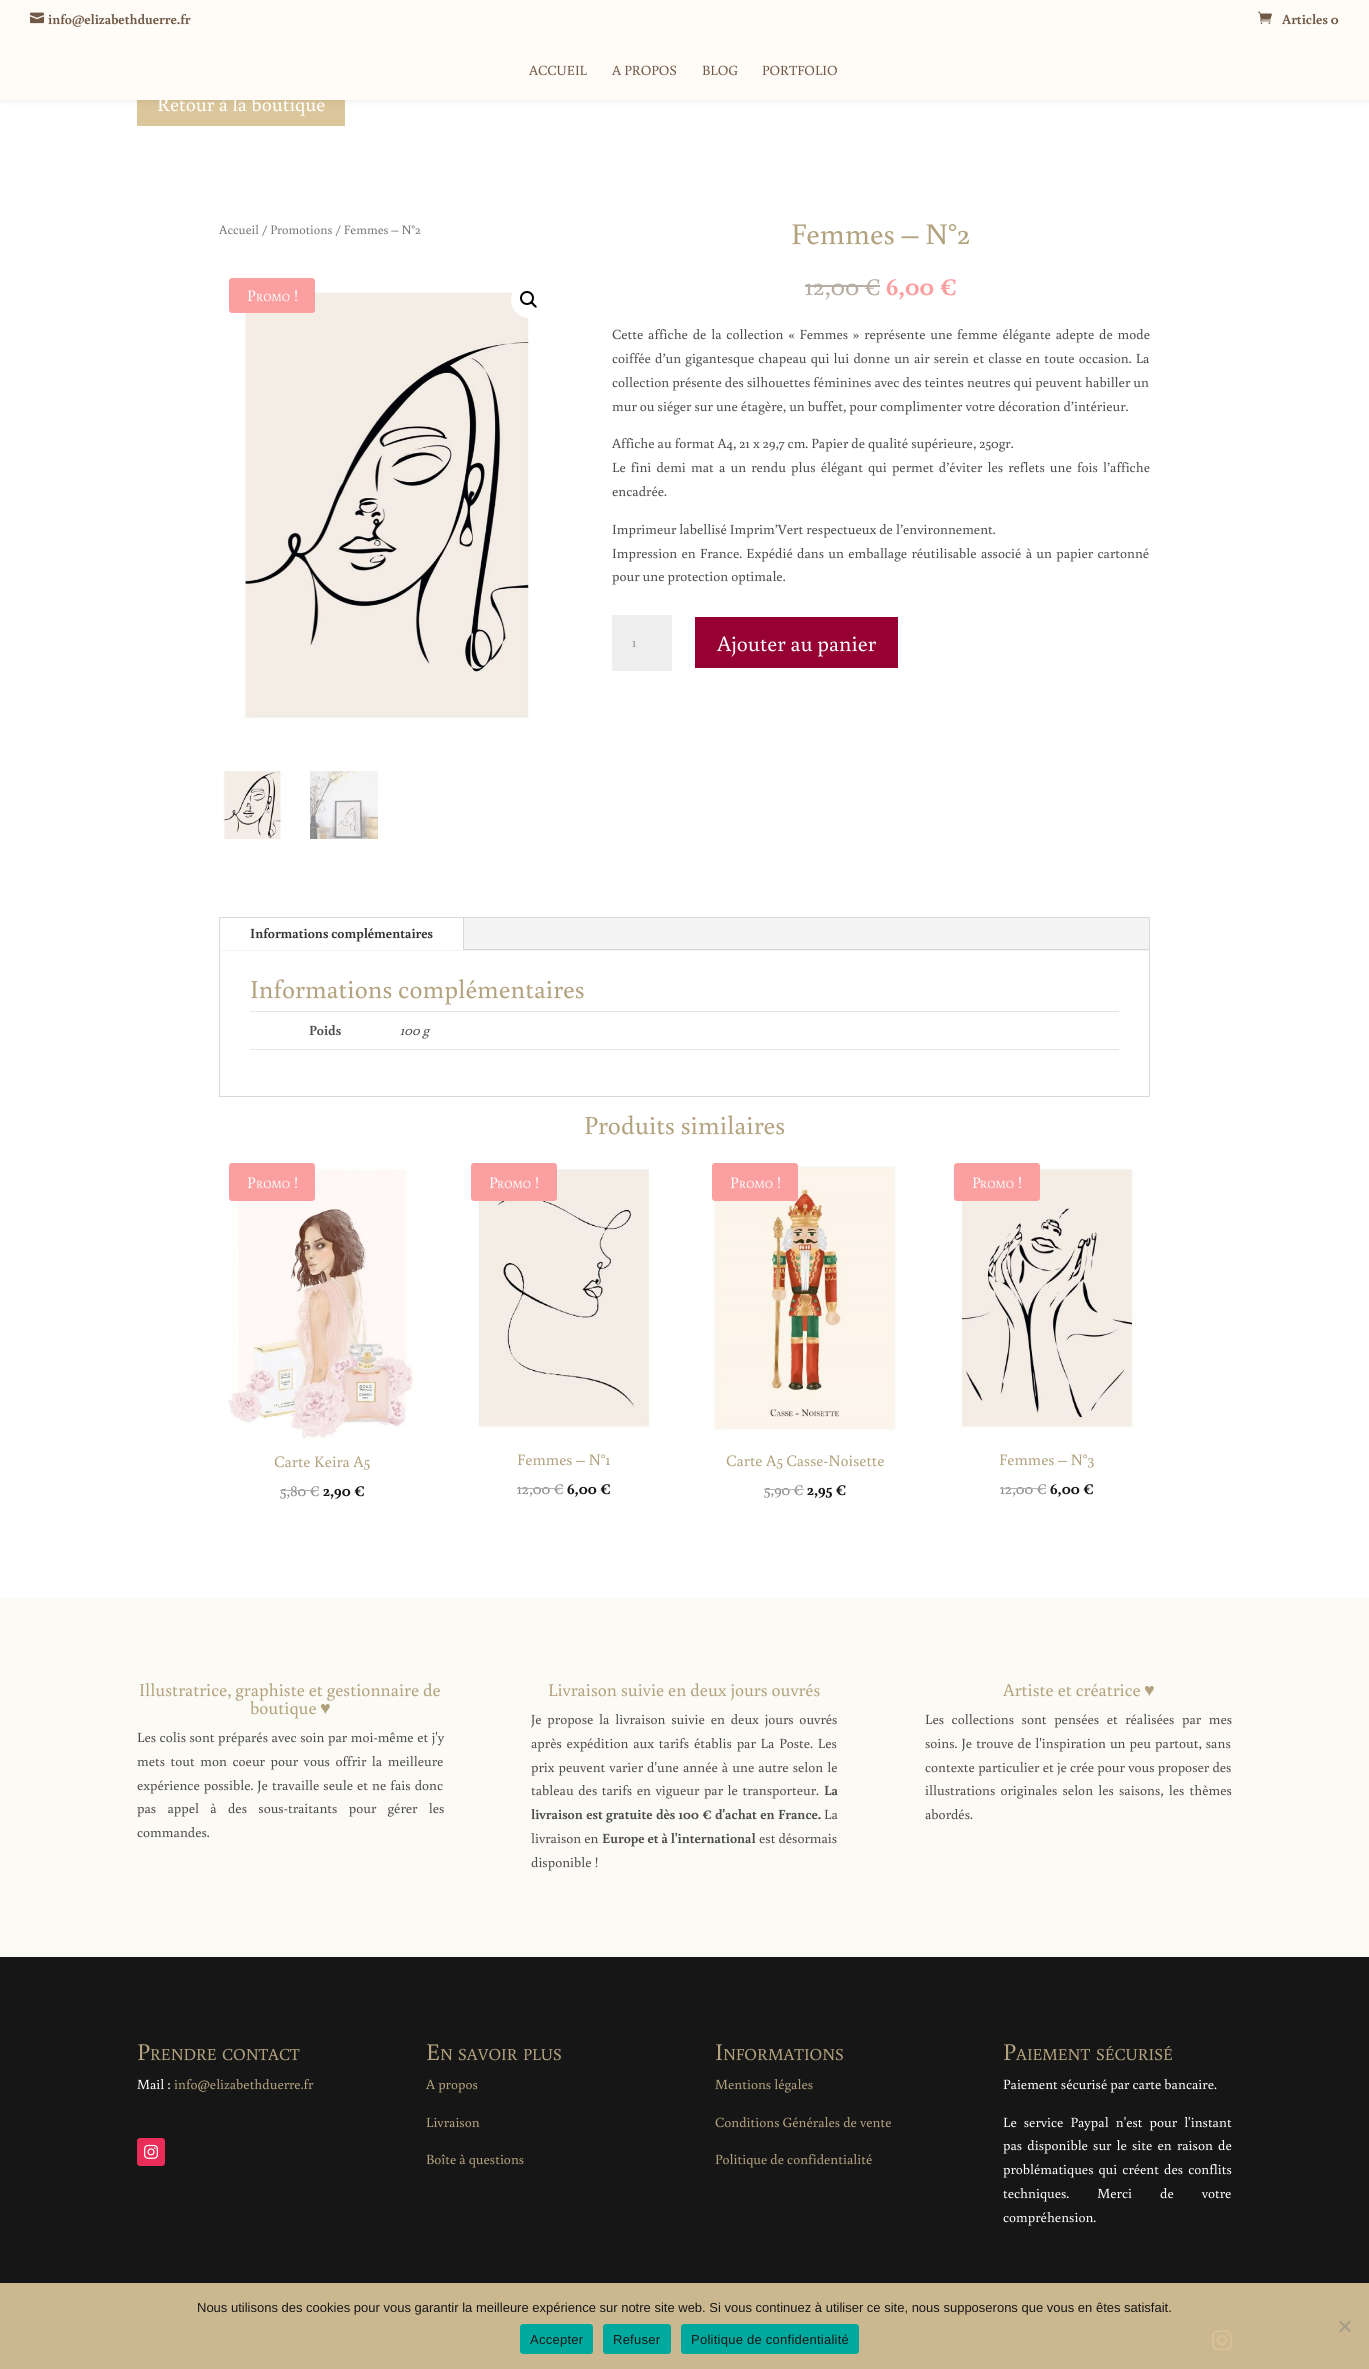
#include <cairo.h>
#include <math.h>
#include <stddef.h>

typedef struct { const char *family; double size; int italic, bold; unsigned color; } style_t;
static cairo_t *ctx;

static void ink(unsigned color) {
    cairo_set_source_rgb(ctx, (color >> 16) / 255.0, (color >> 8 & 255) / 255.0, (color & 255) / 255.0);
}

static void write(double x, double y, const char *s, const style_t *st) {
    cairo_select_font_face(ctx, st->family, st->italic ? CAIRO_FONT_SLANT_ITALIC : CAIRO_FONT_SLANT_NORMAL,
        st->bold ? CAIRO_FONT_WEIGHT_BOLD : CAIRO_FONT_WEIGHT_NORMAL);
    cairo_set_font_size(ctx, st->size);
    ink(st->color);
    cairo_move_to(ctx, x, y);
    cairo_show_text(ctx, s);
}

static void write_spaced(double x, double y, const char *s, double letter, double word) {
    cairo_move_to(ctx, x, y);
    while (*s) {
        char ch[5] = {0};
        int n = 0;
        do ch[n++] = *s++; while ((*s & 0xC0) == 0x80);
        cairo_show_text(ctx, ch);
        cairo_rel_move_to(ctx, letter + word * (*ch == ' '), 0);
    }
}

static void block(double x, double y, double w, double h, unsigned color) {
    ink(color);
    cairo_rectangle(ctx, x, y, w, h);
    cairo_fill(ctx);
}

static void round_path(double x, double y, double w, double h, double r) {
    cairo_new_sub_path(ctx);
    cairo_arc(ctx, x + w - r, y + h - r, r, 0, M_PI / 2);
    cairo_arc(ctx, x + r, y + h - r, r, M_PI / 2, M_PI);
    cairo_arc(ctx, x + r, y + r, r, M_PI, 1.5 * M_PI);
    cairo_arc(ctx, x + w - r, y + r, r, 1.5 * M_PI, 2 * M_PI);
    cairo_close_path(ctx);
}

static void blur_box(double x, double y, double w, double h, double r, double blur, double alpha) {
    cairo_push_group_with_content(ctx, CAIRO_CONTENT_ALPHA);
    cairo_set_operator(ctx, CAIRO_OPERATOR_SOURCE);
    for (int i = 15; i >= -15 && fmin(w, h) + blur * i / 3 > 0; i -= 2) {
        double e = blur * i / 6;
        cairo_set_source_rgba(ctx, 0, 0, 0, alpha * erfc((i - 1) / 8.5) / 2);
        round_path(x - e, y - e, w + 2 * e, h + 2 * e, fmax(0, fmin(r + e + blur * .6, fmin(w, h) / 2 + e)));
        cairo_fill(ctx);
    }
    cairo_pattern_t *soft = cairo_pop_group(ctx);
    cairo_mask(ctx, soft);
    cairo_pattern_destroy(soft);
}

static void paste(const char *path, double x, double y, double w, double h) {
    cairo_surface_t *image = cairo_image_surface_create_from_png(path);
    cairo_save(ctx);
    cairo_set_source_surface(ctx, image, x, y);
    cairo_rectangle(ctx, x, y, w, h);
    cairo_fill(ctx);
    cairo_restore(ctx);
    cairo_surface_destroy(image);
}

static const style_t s1 = {"Buenard", 20, 0, 0, 0xffffff};
static const style_t s2 = {"Buenard", 14, 0, 1, 0x705a47};
static const style_t s3 = {"Buenard", 14, 0, 0, 0x705a47};
static const style_t s4 = {"Buenard", 12.9, 0, 0, 0x767676};
static const style_t s5 = {"Buenard", 16, 0, 0, 0xffffff};
static const style_t s6 = {"Buenard", 11, 0, 0, 0xffffff};
static const style_t s7 = {"Buenard", 30, 0, 0, 0xb2a27e};
static const style_t s8 = {"Buenard", 26, 0, 0, 0xb8ada3};
static const style_t s9 = {"Buenard", 26, 0, 1, 0xfc9fa0};
static const style_t s10 = {"Buenard", 14, 0, 0, 0x4c4c4c};
static const style_t s11 = {"Buenard", 14, 0, 0, 0x999999};
static const style_t s12 = {"Buenard", 22, 0, 0, 0xffffff};
static const style_t s13 = {"Buenard", 14, 0, 1, 0x333333};
static const style_t s14 = {"Buenard", 26, 0, 0, 0xb2a27e};
static const style_t s15 = {"Buenard", 14, 0, 1, 0x4c4c4c};
static const style_t s16 = {"Buenard", 14, 1, 0, 0x4c4c4c};
static const style_t s17 = {"Buenard", 16, 0, 0, 0xb2a27e};
static const style_t s18 = {"Buenard", 16, 0, 0, 0x8b8b8b};
static const style_t s19 = {"Buenard", 16, 0, 1, 0x161616};
static const style_t s20 = {"Buenard", 18, 0, 0, 0xb2a27e};
static const style_t s21 = {"Liberation Serif", 18, 0, 0, 0xb2a27e};
static const style_t s22 = {"Buenard", 24, 0, 0, 0xb2a27e};
static const style_t s23 = {"Buenard", 16.75, 0, 0, 0xb2a27e};
static const style_t s24 = {"Buenard", 14, 0, 0, 0xffffff};
static const style_t s25 = {"Buenard", 14, 0, 0, 0xb2a27e};
static const style_t s26 = {"Liberation Sans", 13, 0, 0, 0x161616};

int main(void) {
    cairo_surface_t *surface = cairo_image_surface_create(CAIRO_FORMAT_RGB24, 1369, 2369);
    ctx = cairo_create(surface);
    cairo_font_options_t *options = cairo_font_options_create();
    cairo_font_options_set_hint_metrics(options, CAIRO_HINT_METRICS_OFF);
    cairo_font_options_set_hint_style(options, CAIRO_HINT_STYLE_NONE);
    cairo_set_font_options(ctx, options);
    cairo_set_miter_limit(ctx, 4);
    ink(0xffffff);
    cairo_paint(ctx);
    block(250, 1049, 151, 1, 0xe6e6e6);
    block(137, 100, 208, 26, 0xdbc69b);
    ink(0x000000);
    blur_box(0, 36, 1369, 64, 0, 3.5, 0.1);
    write(157, 111, "Retour à la boutique", &s1);
    block(0, 0, 1369, 100, 0xfffbf7);
    paste("pic1.png", 30, 12, 14, 12);
    write(48, 24, "info@elizabethduerre.fr", &s2);
    paste("pic2.png", 1258, 11, 14, 13);
    write(1282, 24, "Articles 0", &s2);
    write(529, 75, "ACCUEIL", &s3);
    write(612, 75, "A PROPOS", &s3);
    write(702, 75, "BLOG", &s3);
    write(762, 75, "PORTFOLIO", &s3);
    write(219, 234, "Accueil / Promotions / Femmes – N°2", &s4);
    paste("pic3.png", 244, 292, 285, 428);
    ink(0xffffff);
    cairo_arc(ctx, 529, 300, 18, 0, 2 * M_PI);
    cairo_fill(ctx);
    cairo_arc(ctx, 527, 298, 6, 0, 2 * M_PI);
    ink(0x000000);
    cairo_stroke(ctx);
    cairo_new_path(ctx);
    cairo_move_to(ctx, 531, 302);
    cairo_curve_to(ctx, 532, 300.5, 534, 303.5, 534.5, 304);
    cairo_curve_to(ctx, 535, 304.5, 537.5, 306.5, 536.5, 307.5);
    cairo_curve_to(ctx, 535.5, 308.5, 533.5, 306, 533, 305.5);
    cairo_curve_to(ctx, 532.5, 304.5, 529.5, 303, 531, 302);
    cairo_close_path(ctx);
    cairo_fill(ctx);
    paste("pic4.png", 223, 771, 60, 68);
    paste("pic5.png", 310, 771, 68, 68);
    ink(0xfc9fa0);
    round_path(229, 278, 86, 35, 3);
    cairo_fill(ctx);
    write(247, 301, "P", &s5);
    write(256, 301, "ROMO", &s6);
    write(294, 301, "!", &s5);
    write(791, 244, "Femmes – N°2", &s7);
    write(805, 295, "12,00", &s8);
    block(805, 285, 60, 2, 0xb8ada3);
    write(865, 295, "€", &s8);
    block(865, 285, 15, 2, 0xb8ada3);
    write(886, 295, "6,00 €", &s9);
    cairo_select_font_face(ctx, "Buenard", CAIRO_FONT_SLANT_NORMAL, CAIRO_FONT_WEIGHT_NORMAL);
    cairo_set_font_size(ctx, 14);
    ink(0x4c4c4c);
    write_spaced(612, 339, "Cette affiche de la collection « Femmes » représente une femme élégante adepte de mode", 0, 1.75);
    write_spaced(612, 363, "coiffée d’un gigantesque chapeau qui lui donne un air serein et classe en toute occasion. La", 0, 1.1);
    write(612, 387, "collection présente des silhouettes féminines avec des teintes neutres qui peuvent habiller un", &s10);
    write(612, 411, "mur ou siéger sur une étagère, un buffet, pour complimenter votre décoration d’intérieur.", &s10);
    write(612, 448, "Affiche au format A4, 21 x 29,7 cm. Papier de qualité supérieure, 250gr.", &s10);
    write_spaced(612, 472, "Le fini demi mat a un rendu plus élégant qui permet d’éviter les reflets une fois l’affiche", 0, 2.1);
    write(612, 496, "encadrée.", &s10);
    write(612, 534, "Imprimeur labellisé Imprim’Vert respectueux de l’environnement.", &s10);
    write_spaced(612, 558, "Impression en France. Expédié dans un emballage réutilisable associé à un papier cartonné", 0, 1.25);
    write(612, 581, "pour une protection optimale.", &s10);
    block(612, 615, 60, 56, 0xeeeeee);
    write(632, 647, "1", &s11);
    block(695, 617, 203, 51, 0x960032);
    write(717, 651, "Ajouter au panier", &s12);
    cairo_rectangle(ctx, 219.5, 917.5, 930, 179);
    ink(0xd9d9d9);
    cairo_set_line_width(ctx, 1);
    cairo_stroke(ctx);
    block(220, 918, 929, 33, 0xf4f4f4);
    block(220, 918, 243, 32, 0xffffff);
    block(463, 918, 1, 32, 0xd9d9d9);
    write(250, 938, "Informations complémentaires", &s13);
    block(464, 949, 685, 1, 0xd9d9d9);
    write(250, 998, "Informations complémentaires", &s14);
    block(250, 1011, 869, 1, 0xe6e6e6);
    write(309, 1035, "Poids", &s15);
    block(400, 1049, 719, 1, 0xe6e6e6);
    block(400, 1049, 1, 1, 0xcfcfcf);
    write(400, 1035, "100 g", &s16);
    write(584, 1134, "Produits similaires", &s14);
    paste("pic6.png", 228, 1169, 186, 270);
    ink(0xfc9fa0);
    round_path(229, 1163, 86, 38, 3);
    cairo_fill(ctx);
    write(247, 1188, "P", &s5);
    write(256, 1188, "ROMO", &s6);
    write(294, 1188, "!", &s5);
    write(274, 1467, "Carte Keira A5", &s17);
    write(280, 1496, "5,80", &s18);
    block(280, 1490, 30, 1, 0xb3b3b3);
    write(310, 1496, "€", &s18);
    block(310, 1490, 9, 1, 0xb3b3b3);
    write(323, 1496, "2,90 €", &s19);
    paste("pic7.png", 478, 1168, 173, 260);
    ink(0xfc9fa0);
    round_path(471, 1163, 86, 38, 3);
    cairo_fill(ctx);
    write(489, 1188, "P", &s5);
    write(497, 1188, "ROMO", &s6);
    write(535, 1188, "!", &s5);
    write(517, 1465, "Femmes – N°1", &s17);
    write(517, 1494, "12,00", &s18);
    block(517, 1488, 37, 1, 0xb3b3b3);
    write(554, 1494, "€", &s18);
    block(554, 1488, 9, 1, 0xb3b3b3);
    write(567, 1494, "6,00 €", &s19);
    paste("pic8.png", 713, 1165, 184, 266);
    ink(0xfc9fa0);
    round_path(712, 1163, 86, 38, 3);
    cairo_fill(ctx);
    write(730, 1188, "P", &s5);
    write(739, 1188, "ROMO", &s6);
    write(777, 1188, "!", &s5);
    write(726, 1466, "Carte A5 Casse-Noisette", &s17);
    write(764, 1495, "5,90 €", &s18);
    block(764, 1489, 40, 1, 0xb3b3b3);
    write(807, 1495, "2,95 €", &s19);
    paste("pic9.png", 961, 1168, 175, 260);
    ink(0xfc9fa0);
    round_path(954, 1163, 86, 38, 3);
    cairo_fill(ctx);
    write(972, 1188, "P", &s5);
    write(980, 1188, "ROMO", &s6);
    write(1018, 1188, "!", &s5);
    write(999, 1465, "Femmes – N°3", &s17);
    write(1000, 1494, "12,00", &s18);
    block(1000, 1488, 37, 1, 0xb3b3b3);
    write(1037, 1494, "€", &s18);
    block(1037, 1488, 9, 1, 0xb3b3b3);
    write(1050, 1494, "6,00 €", &s19);
    block(0, 1598, 1369, 359, 0xfcfaf5);
    write(139, 1696, "Illustratrice, graphiste et gestionnaire de", &s20);
    write(250, 1714, "boutique", &s20);
    write(320, 1714, "♥", &s21);
    cairo_select_font_face(ctx, "Buenard", CAIRO_FONT_SLANT_NORMAL, CAIRO_FONT_WEIGHT_NORMAL);
    cairo_set_font_size(ctx, 14);
    ink(0x4c4c4c);
    write_spaced(137, 1742, "Les colis sont préparés avec soin par moi-même et j'y", 0, 0.5);
    write_spaced(137, 1766, "mets tout mon coeur pour vous offrir la meilleure", 0, 2.5);
    write_spaced(137, 1790, "expérience possible. Je travaille seule et ne fais donc", 0, 1);
    write_spaced(137, 1813, "pas appel à des sous-traitants pour gérer les", 0, 8.25);
    write(137, 1837, "commandes.", &s10);
    write(548, 1696, "Livraison suivie en deux jours ouvrés", &s20);
    cairo_set_font_size(ctx, 14);
    ink(0x4c4c4c);
    write_spaced(531, 1724, "Je propose la livraison suivie en deux jours ouvrés", 0, 2.75);
    write_spaced(531, 1748, "après expédition aux tarifs établis par La Poste. Les", 0, 1.75);
    write_spaced(531, 1772, "prix peuvent varier d'une année à une autre selon le", 0, 1);
    write_spaced(531, 1795, "tableau des tarifs en vigueur par le transporteur.", 0, 1.5);
    write(824, 1795, "La", &s15);
    write_spaced(531, 1819, "livraison est gratuite dès 100 € d'achat en France.", 0, 0.5);
    write(824, 1819, "La", &s10);
    write(531, 1843, "livraison en", &s10);
    write(602, 1843, "Europe et à l'international", &s15);
    write(759, 1843, "est désormais", &s10);
    write(531, 1867, "disponible !", &s10);
    write(1003, 1696, "Artiste et créatrice", &s20);
    write(1144, 1696, "♥", &s21);
    cairo_select_font_face(ctx, "Buenard", CAIRO_FONT_SLANT_NORMAL, CAIRO_FONT_WEIGHT_NORMAL);
    cairo_set_font_size(ctx, 14);
    ink(0x4c4c4c);
    write_spaced(925, 1724, "Les collections sont pensées et réalisées par mes", 0, 4.5);
    write_spaced(925, 1748, "soins. Je trouve de l'inspiration un peu partout, sans", 0, 1);
    write_spaced(925, 1772, "contexte particulier et je crée pour vous proposer des", 0, 0.25);
    write_spaced(925, 1795, "illustrations originales selon les saisons, les thèmes", 0, 2.1);
    write(925, 1819, "abordés.", &s10);
    block(0, 1957, 1369, 326, 0x161616);
    write(137, 2060, "P", &s22);
    write(150, 2060, "RENDRE", &s23);
    write(222, 2060, "CONTACT", &s23);
    write(137, 2089, "Mail :", &s24);
    write(174, 2089, "info@elizabethduerre.fr", &s25);
    ink(0xea2c59);
    round_path(137, 2138, 28, 28, 3);
    cairo_fill(ctx);
    paste("pic10.png", 144, 2144, 14, 15);
    write(426, 2060, "E", &s22);
    write(440, 2060, "N", &s23);
    write(458, 2060, "SAVOIR", &s23);
    write(523, 2060, "PLUS", &s23);
    write(426, 2089, "A propos", &s25);
    write(426, 2127, "Livraison", &s25);
    write(426, 2164, "Boîte à questions", &s25);
    write(715, 2060, "I", &s22);
    write(723, 2060, "NFORMATIONS", &s23);
    write(715, 2089, "Mentions légales", &s25);
    write(715, 2127, "Conditions Générales de vente", &s25);
    write(715, 2164, "Politique de confidentialité", &s25);
    write(1003, 2060, "P", &s22);
    write(1016, 2060, "AIEMENT", &s23);
    write(1096, 2060, "SÉCURISÉ", &s23);
    write(1003, 2089, "Paiement sécurisé par carte bancaire.", &s24);
    write_spaced(1003, 2127, "Le service Paypal n'est pour l'instant", 0, 4);
    write_spaced(1003, 2150, "pas disponible sur le site en raison de", 0, 2.1);
    write_spaced(1003, 2174, "problématiques qui créent des conflits", 0, 2);
    write_spaced(1003, 2198, "techniques. Merci de votre", 0, 25);
    write(1003, 2222, "compréhension.", &s24);
    block(0, 2283, 1369, 86, 0xcbb890);
    paste("pic11.png", 1212, 2330, 20, 21);
    write(197, 2312, "Nous utilisons des cookies pour vous garantir la meilleure expérience sur notre site web. Si vous continuez à utiliser ce site, nous supposerons que vous en êtes satisfait.", &s26);
    ink(0xa69c88);
    cairo_new_path(ctx);
    cairo_move_to(ctx, 1349.5, 2320.5);
    cairo_line_to(ctx, 1351, 2322);
    cairo_line_to(ctx, 1340.5, 2332.5);
    cairo_line_to(ctx, 1339, 2331);
    cairo_close_path(ctx);
    cairo_fill(ctx);
    cairo_new_path(ctx);
    cairo_move_to(ctx, 1339, 2322);
    cairo_line_to(ctx, 1340.5, 2320.5);
    cairo_line_to(ctx, 1351, 2331);
    cairo_line_to(ctx, 1349.5, 2332.5);
    cairo_close_path(ctx);
    cairo_fill(ctx);
    ink(0x00a99d);
    round_path(520, 2324, 73, 30, 3);
    cairo_fill(ctx);
    ink(0x161616);
    write_spaced(530, 2344, "Accepter", 0.25, 0);
    ink(0x00a99d);
    round_path(603, 2324, 68, 30, 3);
    cairo_fill(ctx);
    ink(0x161616);
    write_spaced(613, 2344, "Refuser", 0.25, 0);
    ink(0x00a99d);
    round_path(681, 2324, 178, 30, 3);
    cairo_fill(ctx);
    ink(0x161616);
    write_spaced(691, 2344, "Politique de confidentialité", 0.25, 0);
    cairo_surface_write_to_png(surface, "screenshot.png");
    cairo_font_options_destroy(options);
    cairo_destroy(ctx);
    cairo_surface_destroy(surface);
    return 0;
}
